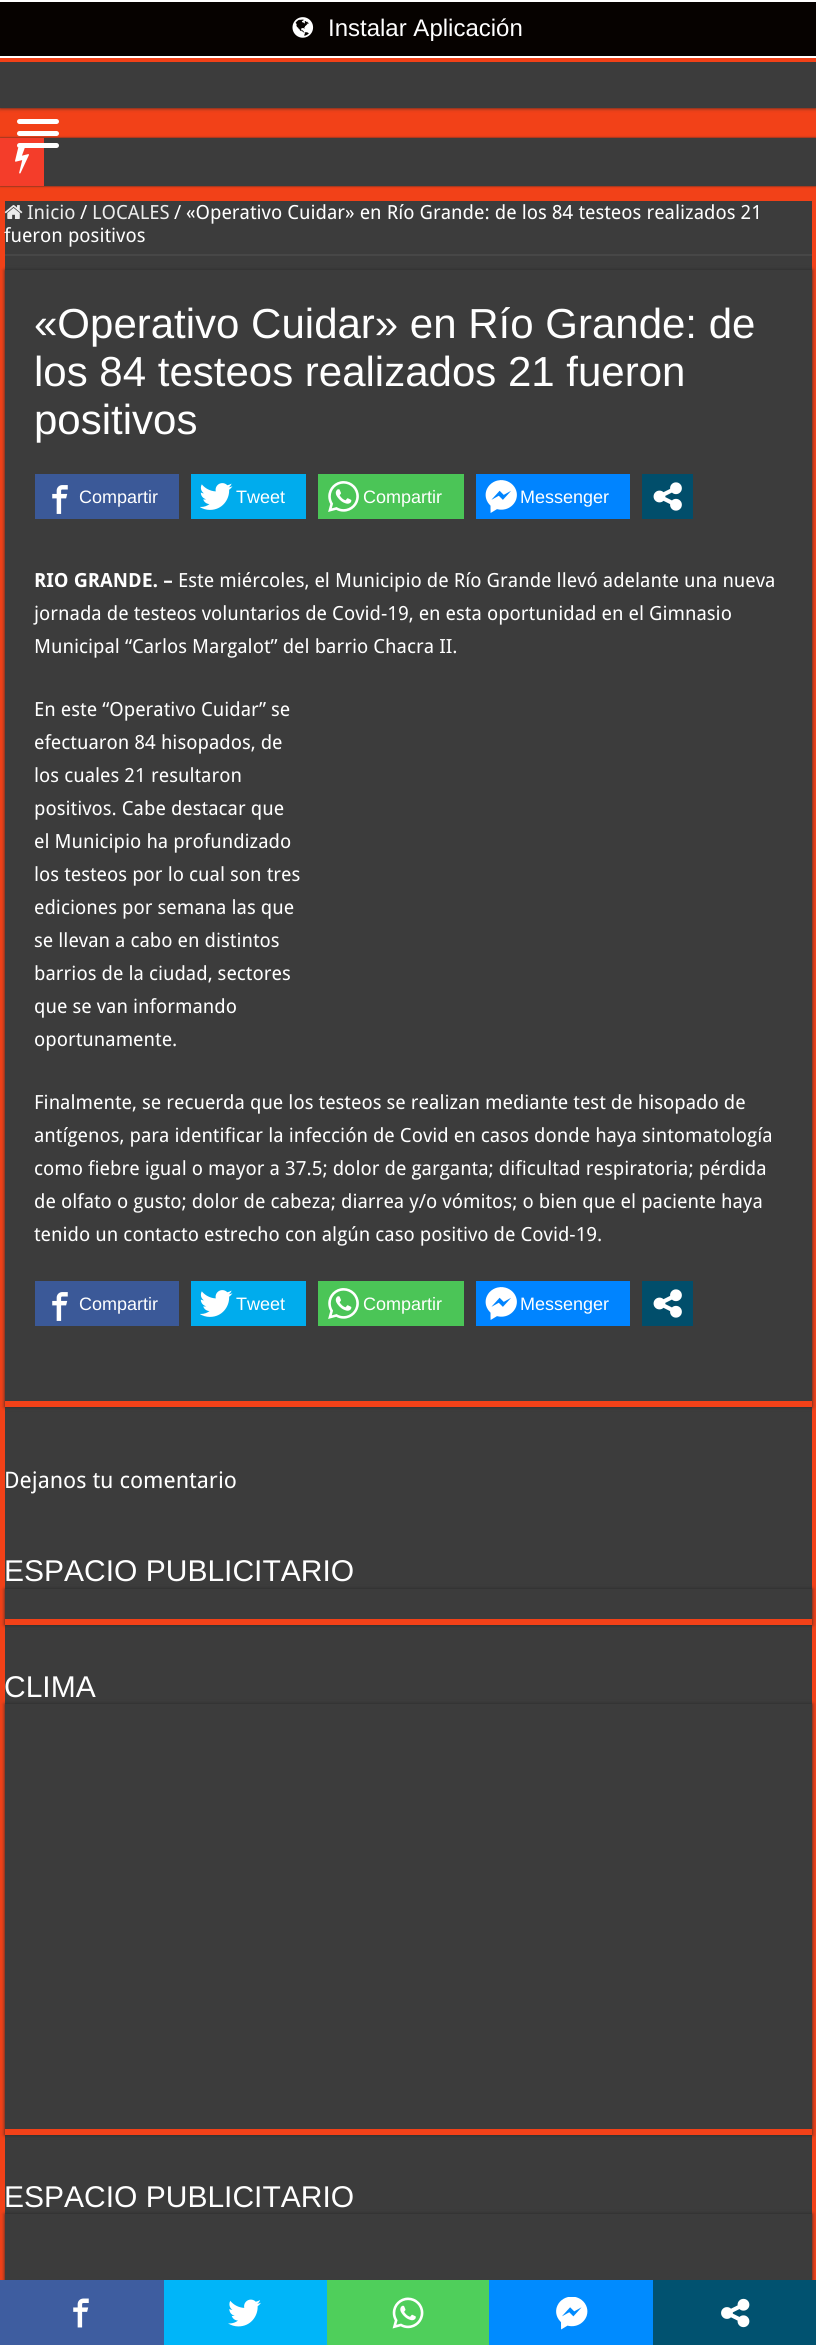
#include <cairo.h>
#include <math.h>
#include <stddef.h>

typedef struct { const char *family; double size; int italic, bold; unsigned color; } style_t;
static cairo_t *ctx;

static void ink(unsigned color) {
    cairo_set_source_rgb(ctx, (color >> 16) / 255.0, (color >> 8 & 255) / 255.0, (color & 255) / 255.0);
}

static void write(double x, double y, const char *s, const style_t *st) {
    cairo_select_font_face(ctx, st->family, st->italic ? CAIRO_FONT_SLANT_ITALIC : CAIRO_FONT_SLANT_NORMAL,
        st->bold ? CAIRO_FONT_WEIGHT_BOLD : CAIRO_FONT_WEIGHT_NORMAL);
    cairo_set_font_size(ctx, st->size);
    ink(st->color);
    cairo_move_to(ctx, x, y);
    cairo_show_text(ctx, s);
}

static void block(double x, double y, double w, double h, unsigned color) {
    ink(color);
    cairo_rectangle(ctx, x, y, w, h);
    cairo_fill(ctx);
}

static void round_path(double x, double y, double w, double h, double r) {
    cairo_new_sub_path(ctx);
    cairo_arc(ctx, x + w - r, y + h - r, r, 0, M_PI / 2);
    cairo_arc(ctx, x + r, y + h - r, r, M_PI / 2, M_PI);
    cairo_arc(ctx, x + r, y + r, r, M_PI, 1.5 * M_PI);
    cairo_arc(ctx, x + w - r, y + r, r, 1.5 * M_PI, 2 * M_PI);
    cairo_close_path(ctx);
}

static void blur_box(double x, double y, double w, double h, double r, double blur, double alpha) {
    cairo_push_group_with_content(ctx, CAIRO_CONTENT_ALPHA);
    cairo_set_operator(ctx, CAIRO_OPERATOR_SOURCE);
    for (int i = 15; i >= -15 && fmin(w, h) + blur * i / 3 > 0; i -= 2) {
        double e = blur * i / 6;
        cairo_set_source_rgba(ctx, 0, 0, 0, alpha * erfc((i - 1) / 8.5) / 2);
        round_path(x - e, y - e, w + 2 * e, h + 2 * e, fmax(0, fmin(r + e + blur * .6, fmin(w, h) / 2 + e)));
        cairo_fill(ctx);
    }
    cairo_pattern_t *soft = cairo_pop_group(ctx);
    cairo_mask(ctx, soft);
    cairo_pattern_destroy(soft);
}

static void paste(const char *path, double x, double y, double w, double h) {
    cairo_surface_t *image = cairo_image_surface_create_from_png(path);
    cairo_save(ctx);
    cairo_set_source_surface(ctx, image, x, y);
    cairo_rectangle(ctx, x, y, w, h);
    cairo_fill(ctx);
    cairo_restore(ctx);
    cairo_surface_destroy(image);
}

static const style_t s1 = {"Liberation Sans", 24, 0, 0, 0xffffff};
static const style_t s2 = {"Droid Sans", 19.5, 0, 0, 0xececec};
static const style_t s3 = {"Droid Sans", 19.5, 0, 0, 0xffffff};
static const style_t s4 = {"Liberation Sans", 42, 0, 0, 0xffffff};
static const style_t s5 = {"Liberation Sans", 18, 0, 0, 0xffffff};
static const style_t s6 = {"Droid Sans", 19.5, 0, 1, 0xffffff};
static const style_t s7 = {"Droid Sans", 22.75, 0, 0, 0xffffff};
static const style_t s8 = {"Liberation Sans", 30, 0, 0, 0xffffff};

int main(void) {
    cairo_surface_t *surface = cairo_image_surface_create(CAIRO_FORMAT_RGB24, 816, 2345);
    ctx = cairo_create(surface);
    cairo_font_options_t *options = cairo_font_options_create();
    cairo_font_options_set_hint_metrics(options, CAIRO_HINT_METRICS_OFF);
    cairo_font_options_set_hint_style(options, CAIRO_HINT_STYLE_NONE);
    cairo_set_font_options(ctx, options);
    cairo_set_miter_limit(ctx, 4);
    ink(0xf24118);
    cairo_paint(ctx);
    ink(0x2a2a2a);
    blur_box(0, 57, 816, 51, 0, 2, 1);
    block(0, 2, 816, 54, 0x060200);
    block(0, 0, 816, 2, 0xffffff);
    block(0, 56, 816, 2, 0xffffff);
    paste("pic1.png", 292, 17, 22, 21);
    write(328, 36, "Instalar Aplicación", &s1);
    block(0, 62, 816, 46, 0x3c3c3c);
    block(0, 58, 816, 4, 0xf24118);
    ink(0xffffff);
    round_path(17, 119, 42, 5, 2.5);
    cairo_fill(ctx);
    ink(0x2a2a2a);
    blur_box(0, 138, 816, 48, 0, 1, 1);
    ink(0xffffff);
    round_path(17, 131, 42, 5, 2.5);
    cairo_fill(ctx);
    block(44, 138, 772, 48, 0x3c3c3c);
    block(0, 138, 44, 48, 0xf43d2a);
    paste("pic2.png", 15, 147, 14, 27);
    ink(0xffffff);
    round_path(17, 143, 42, 5, 2.5);
    cairo_fill(ctx);
    block(5, 201, 807, 2013, 0x3c3c3c);
    block(5, 254, 807, 2, 0x474747);
    paste("pic3.png", 4, 205, 19, 14);
    write(27, 219, "Inicio", &s2);
    write(80, 219, "/", &s3);
    write(92, 219, "LOCALES", &s2);
    write(174, 219, "/", &s3);
    write(186, 219, "«Operativo Cuidar» en Río Grande: de los 84 testeos realizados 21", &s3);
    write(4, 242, "fueron positivos", &s3);
    ink(0x2a2a2a);
    blur_box(5, 270, 807, 1137, 0, 2, 1);
    block(5, 270, 807, 1131, 0x3c3c3c);
    block(5, 1401, 807, 6, 0xf24118);
    write(34, 338, "«Operativo Cuidar» en Río Grande: de", &s4);
    write(34, 386, "los 84 testeos realizados 21 fueron", &s4);
    write(34, 434, "positivos", &s4);
    block(35, 474, 144, 45, 0x3b5998);
    paste("pic4.png", 52, 485, 16, 29);
    write(79, 503, "Compartir", &s5);
    block(191, 474, 115, 45, 0x00aced);
    paste("pic5.png", 200, 483, 33, 27);
    write(236, 503, "Tweet", &s5);
    block(318, 474, 146, 45, 0x4bc557);
    paste("pic6.png", 328, 481, 31, 31);
    write(363, 503, "Compartir", &s5);
    block(476, 474, 154, 45, 0x0084ff);
    paste("pic7.png", 485, 480, 32, 33);
    write(520, 503, "Messenger", &s5);
    block(642, 474, 51, 45, 0x014e6b);
    paste("pic8.png", 653, 482, 29, 29);
    write(34, 587, "RIO GRANDE. –", &s6);
    write(178, 587, "Este miércoles, el Municipio de Río Grande llevó adelante una nueva", &s3);
    write(34, 620, "jornada de testeos voluntarios de Covid-19, en esta oportunidad en el Gimnasio", &s3);
    write(34, 653, "Municipal “Carlos Margalot” del barrio Chacra II.", &s3);
    write(34, 716, "En este “Operativo Cuidar” se", &s3);
    write(34, 749, "efectuaron 84 hisopados, de", &s3);
    write(34, 782, "los cuales 21 resultaron", &s3);
    write(34, 815, "positivos. Cabe destacar que", &s3);
    write(34, 848, "el Municipio ha profundizado", &s3);
    write(34, 881, "los testeos por lo cual son tres", &s3);
    write(34, 914, "ediciones por semana las que", &s3);
    write(34, 947, "se llevan a cabo en distintos", &s3);
    write(34, 980, "barrios de la ciudad, sectores", &s3);
    write(34, 1013, "que se van informando", &s3);
    write(34, 1046, "oportunamente.", &s3);
    write(34, 1109, "Finalmente, se recuerda que los testeos se realizan mediante test de hisopado de", &s3);
    write(34, 1142, "antígenos, para identificar la infección de Covid en casos donde haya sintomatología", &s3);
    write(34, 1175, "como fiebre igual o mayor a 37.5; dolor de garganta; dificultad respiratoria; pérdida", &s3);
    write(34, 1208, "de olfato o gusto; dolor de cabeza; diarrea y/o vómitos; o bien que el paciente haya", &s3);
    write(34, 1241, "tenido un contacto estrecho con algún caso positivo de Covid-19.", &s3);
    block(35, 1281, 144, 45, 0x3b5998);
    paste("pic4.png", 52, 1292, 16, 29);
    write(79, 1310, "Compartir", &s5);
    block(191, 1281, 115, 45, 0x00aced);
    paste("pic5.png", 200, 1290, 33, 27);
    write(236, 1310, "Tweet", &s5);
    block(318, 1281, 146, 45, 0x4bc557);
    paste("pic6.png", 328, 1288, 31, 31);
    write(363, 1310, "Compartir", &s5);
    block(476, 1281, 154, 45, 0x0084ff);
    paste("pic7.png", 485, 1287, 32, 33);
    write(520, 1310, "Messenger", &s5);
    block(642, 1281, 51, 45, 0x014e6b);
    paste("pic8.png", 653, 1289, 29, 29);
    write(4, 1488, "Dejanos tu comentario", &s7);
    write(4, 1581, "ESPACIO PUBLICITARIO", &s8);
    ink(0x2a2a2a);
    blur_box(5, 1589, 807, 36, 0, 2, 1);
    block(5, 1589, 807, 30, 0x3c3c3c);
    block(5, 1619, 807, 6, 0xf24118);
    ink(0x2a2a2a);
    blur_box(5, 1704, 807, 431, 0, 2, 1);
    write(4, 1697, "CLIMA", &s8);
    block(5, 1704, 807, 425, 0x3c3c3c);
    block(5, 2129, 807, 6, 0xf24118);
    ink(0x2a2a2a);
    blur_box(5, 2214, 807, 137, 0, 2, 1);
    write(4, 2207, "ESPACIO PUBLICITARIO", &s8);
    block(5, 2214, 807, 66, 0x3c3c3c);
    block(0, 2280, 164, 65, 0x3e5da0);
    paste("pic9.png", 73, 2298, 16, 30);
    block(164, 2280, 163, 65, 0x00b5f9);
    paste("pic10.png", 228, 2299, 33, 28);
    block(327, 2280, 162, 65, 0x4fcf5b);
    paste("pic11.png", 392, 2297, 32, 32);
    block(489, 2280, 164, 65, 0x008bff);
    paste("pic12.png", 556, 2297, 32, 33);
    block(653, 2280, 163, 65, 0x015270);
    paste("pic13.png", 721, 2298, 29, 30);
    cairo_surface_write_to_png(surface, "screenshot.png");
    cairo_font_options_destroy(options);
    cairo_destroy(ctx);
    cairo_surface_destroy(surface);
    return 0;
}
